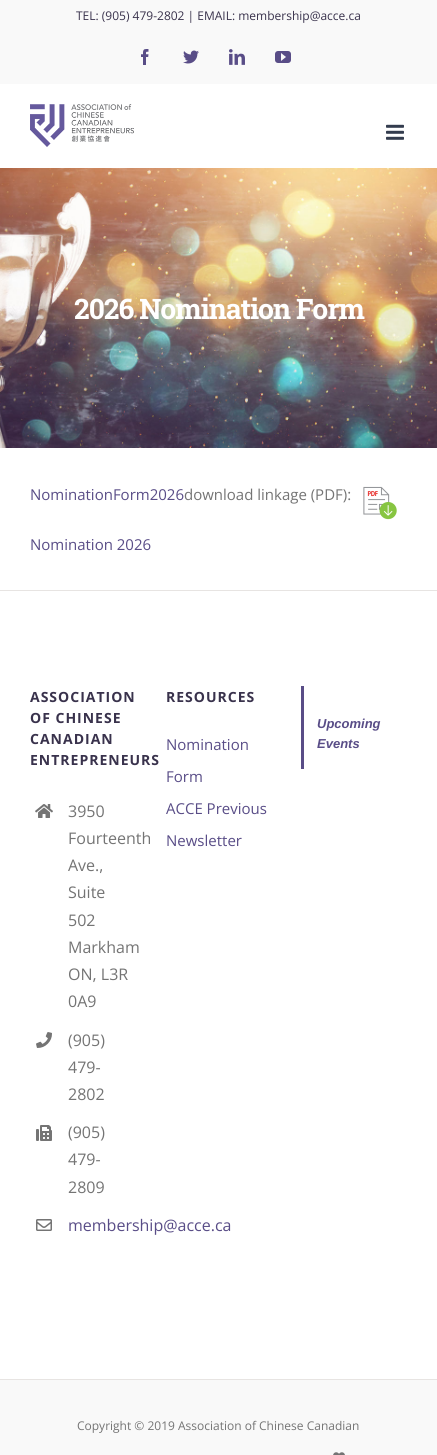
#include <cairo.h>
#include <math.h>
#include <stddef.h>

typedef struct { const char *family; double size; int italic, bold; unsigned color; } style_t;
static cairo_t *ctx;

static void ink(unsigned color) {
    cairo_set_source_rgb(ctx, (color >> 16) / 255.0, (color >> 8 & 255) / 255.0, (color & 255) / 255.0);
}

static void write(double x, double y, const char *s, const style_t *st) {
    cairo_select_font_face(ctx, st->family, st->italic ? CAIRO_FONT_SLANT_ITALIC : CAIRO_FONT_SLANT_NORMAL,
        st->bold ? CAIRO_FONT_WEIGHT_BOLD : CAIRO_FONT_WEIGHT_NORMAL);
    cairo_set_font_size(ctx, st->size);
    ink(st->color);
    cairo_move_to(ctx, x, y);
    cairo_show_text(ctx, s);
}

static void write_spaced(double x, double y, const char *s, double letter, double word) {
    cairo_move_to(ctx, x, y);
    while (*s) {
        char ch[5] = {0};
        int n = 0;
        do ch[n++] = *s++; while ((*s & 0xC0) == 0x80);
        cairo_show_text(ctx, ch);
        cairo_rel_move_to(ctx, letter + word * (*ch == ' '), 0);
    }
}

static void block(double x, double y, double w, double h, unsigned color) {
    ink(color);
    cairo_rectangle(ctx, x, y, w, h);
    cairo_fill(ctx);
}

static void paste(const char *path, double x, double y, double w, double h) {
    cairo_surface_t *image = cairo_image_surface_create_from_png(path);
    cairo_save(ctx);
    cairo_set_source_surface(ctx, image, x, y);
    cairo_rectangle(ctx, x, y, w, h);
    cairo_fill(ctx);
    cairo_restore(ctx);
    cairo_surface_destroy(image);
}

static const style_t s1 = {"Open Sans", 12, 0, 0, 0x39324c};
static const style_t s2 = {"Open Sans", 15, 0, 0, 0x594d87};
static const style_t s3 = {"Open Sans", 15, 0, 0, 0x747474};
static const style_t s4 = {"Open Sans", 16, 0, 0, 0x747474};
static const style_t s5 = {"Open Sans", 16, 0, 0, 0x594d87};
static const style_t s6 = {"Liberation Sans", 13, 1, 1, 0x594d87};
static const style_t s7 = {"Open Sans", 12, 0, 0, 0x747474};

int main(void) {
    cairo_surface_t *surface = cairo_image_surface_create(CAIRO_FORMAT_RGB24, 437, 1455);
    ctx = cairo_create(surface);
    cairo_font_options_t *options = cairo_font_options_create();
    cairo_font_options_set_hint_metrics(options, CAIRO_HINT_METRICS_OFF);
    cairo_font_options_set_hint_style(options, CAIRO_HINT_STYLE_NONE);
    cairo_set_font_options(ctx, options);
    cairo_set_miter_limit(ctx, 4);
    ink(0xffffff);
    cairo_paint(ctx);
    block(0, 0, 437, 84, 0xf9f9f9);
    write(76, 20, "TEL: (905) 479-2802 | EMAIL: membership@acce.ca", &s1);
    paste("pic1.png", 141, 49, 8, 16);
    paste("pic2.png", 183, 50, 16, 14);
    paste("pic3.png", 229, 49, 16, 16);
    paste("pic4.png", 275, 51, 16, 12);
    paste("pic5.png", 30, 104, 104, 43);
    paste("pic6.png", 386, 124, 18, 16);
    paste("pic7.png", 0, 168, 437, 280);
    cairo_select_font_face(ctx, "Roboto Slab", CAIRO_FONT_SLANT_NORMAL, CAIRO_FONT_WEIGHT_BOLD);
    cairo_set_font_size(ctx, 28.25);
    ink(0xffffff);
    write_spaced(74, 319, "2026 Nomination Form", -1, 0);
    write(30, 500, "NominationForm2026", &s2);
    write(184, 500, "download linkage (PDF):", &s3);
    paste("pic8.png", 363, 486, 34, 34);
    write(30, 550, "Nomination 2026", &s2);
    block(0, 590, 437, 1, 0xe7e4e2);
    cairo_select_font_face(ctx, "Open Sans", CAIRO_FONT_SLANT_NORMAL, CAIRO_FONT_WEIGHT_BOLD);
    cairo_set_font_size(ctx, 14);
    ink(0x39324c);
    write_spaced(30, 702, "ASSOCIATION", 1, 0);
    write_spaced(30, 723, "OF CHINESE", 1, 0);
    write_spaced(30, 744, "CANADIAN", 1, 0);
    write_spaced(30, 765, "ENTREPRENEURS", 1, 0);
    paste("pic9.png", 35, 804, 18, 14);
    write(68, 817, "3950", &s4);
    write(68, 844, "Fourteenth", &s4);
    write(68, 871, "Ave.,", &s4);
    write(68, 898, "Suite", &s4);
    write(68, 926, "502", &s4);
    write(68, 953, "Markham", &s4);
    write(68, 980, "ON, L3R", &s4);
    write(68, 1007, "0A9", &s4);
    paste("pic10.png", 36, 1032, 16, 16);
    write(68, 1046, "(905)", &s4);
    write(68, 1073, "479-", &s4);
    write(68, 1100, "2802", &s4);
    paste("pic11.png", 36, 1125, 16, 16);
    write(68, 1138, "(905)", &s4);
    write(68, 1165, "479-", &s4);
    write(68, 1193, "2809", &s4);
    paste("pic12.png", 36, 1219, 16, 12);
    write(68, 1231, "membership@acce.ca", &s5);
    cairo_select_font_face(ctx, "Open Sans", CAIRO_FONT_SLANT_NORMAL, CAIRO_FONT_WEIGHT_BOLD);
    cairo_set_font_size(ctx, 14);
    ink(0x39324c);
    write_spaced(166, 702, "RESOURCES", 1, 0);
    write(166, 750, "Nomination", &s2);
    write(166, 782, "Form", &s2);
    write(166, 814, "ACCE Previous", &s2);
    write(166, 846, "Newsletter", &s2);
    block(301, 686, 3, 83, 0x594d87);
    write(317, 728, "Upcoming", &s6);
    write(317, 748, "Events", &s6);
    block(0, 1380, 437, 75, 0xf9f9f9);
    block(0, 1379, 437, 1, 0xe7e4e2);
    write(77, 1430, "Copyright © 2019 Association of Chinese Canadian", &s7);
    paste("pic13.png", 333, 1452, 12, 3);
    cairo_surface_write_to_png(surface, "screenshot.png");
    cairo_font_options_destroy(options);
    cairo_destroy(ctx);
    cairo_surface_destroy(surface);
    return 0;
}
